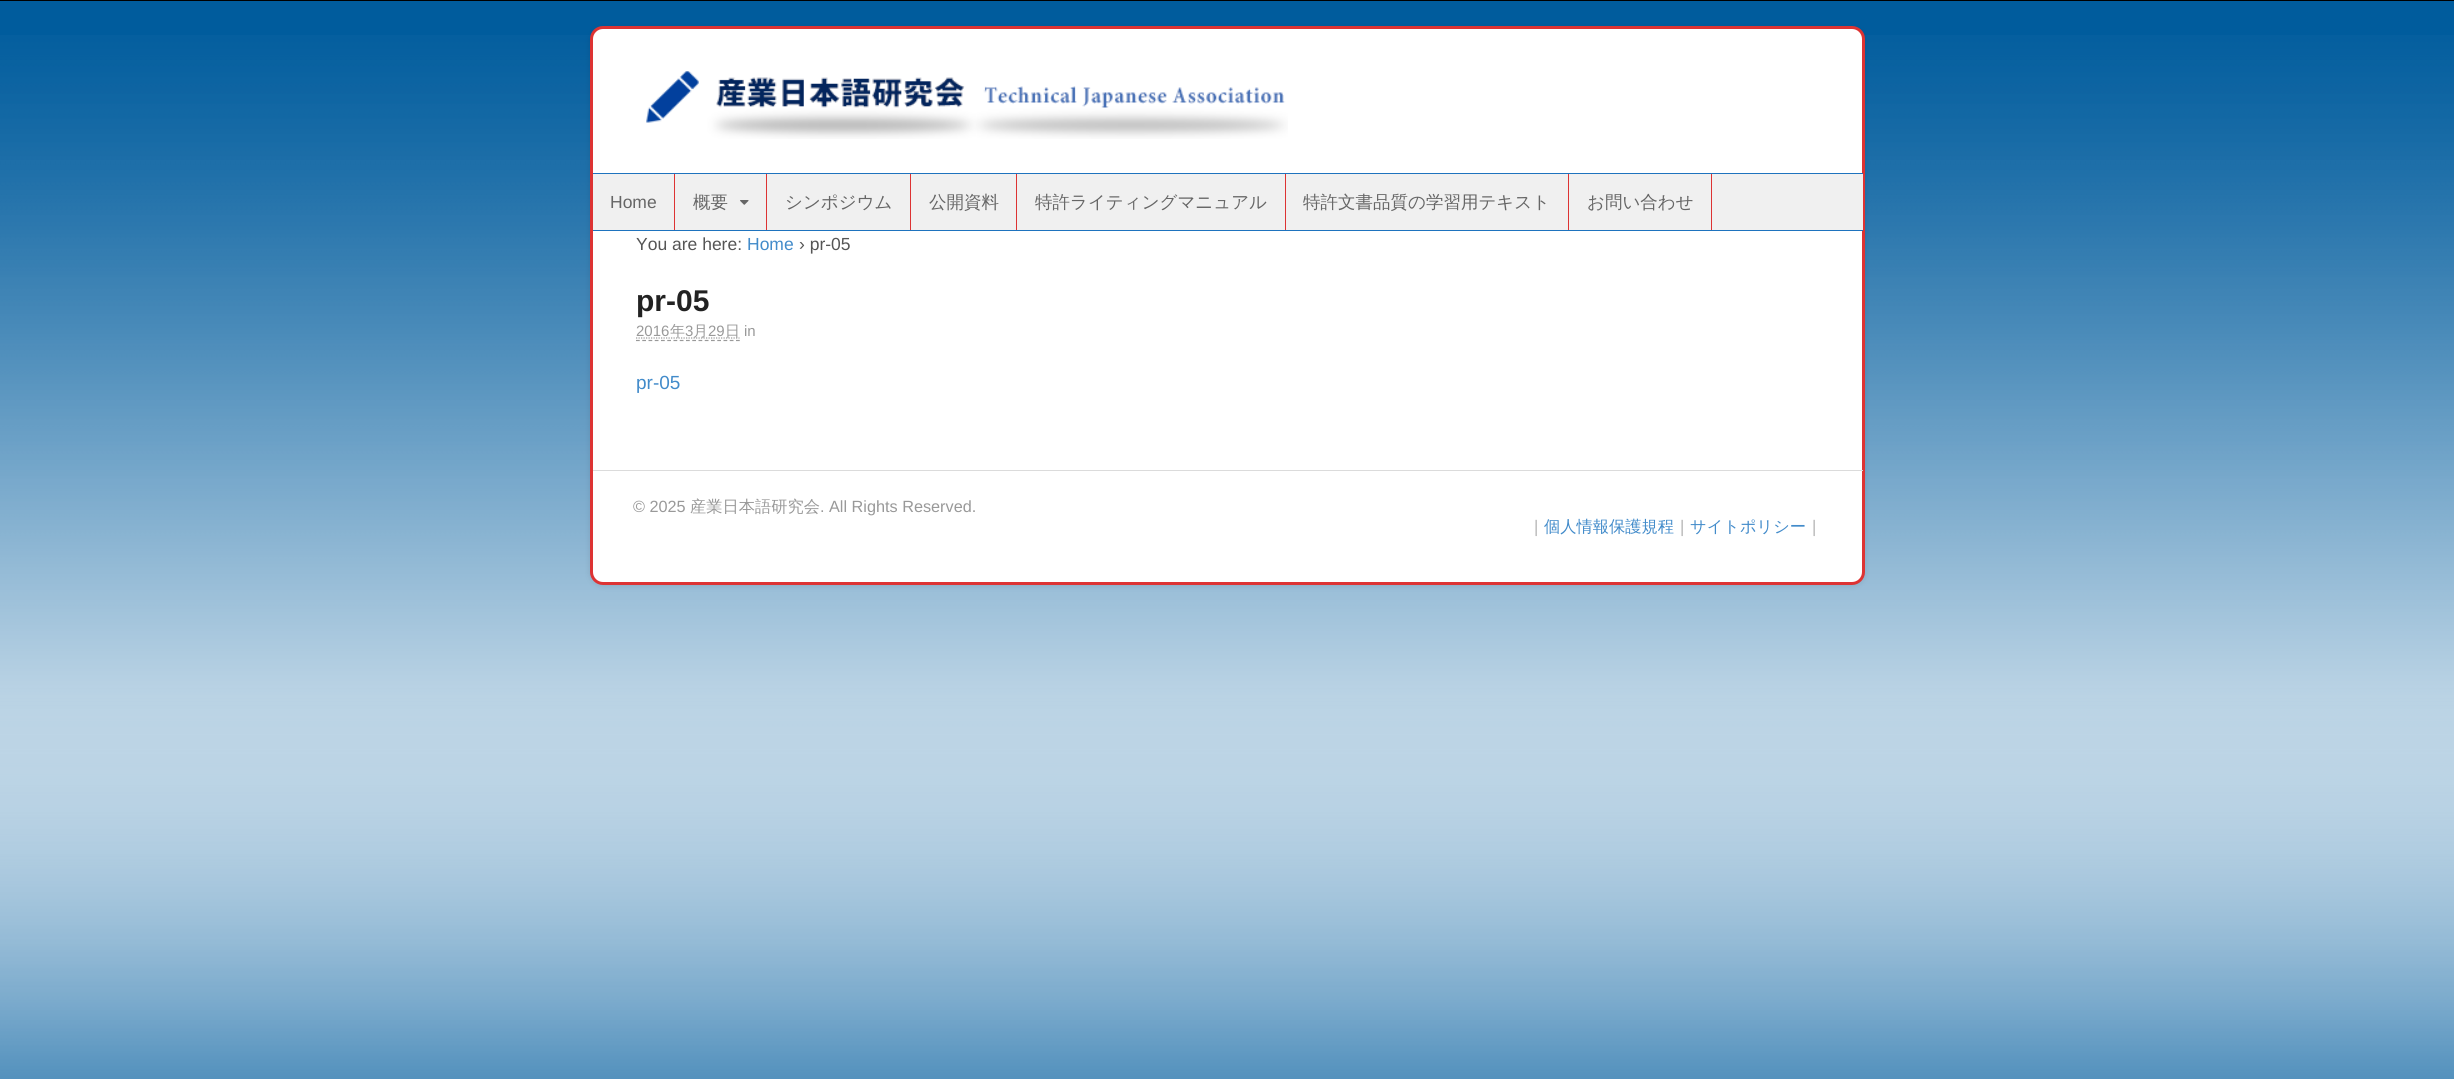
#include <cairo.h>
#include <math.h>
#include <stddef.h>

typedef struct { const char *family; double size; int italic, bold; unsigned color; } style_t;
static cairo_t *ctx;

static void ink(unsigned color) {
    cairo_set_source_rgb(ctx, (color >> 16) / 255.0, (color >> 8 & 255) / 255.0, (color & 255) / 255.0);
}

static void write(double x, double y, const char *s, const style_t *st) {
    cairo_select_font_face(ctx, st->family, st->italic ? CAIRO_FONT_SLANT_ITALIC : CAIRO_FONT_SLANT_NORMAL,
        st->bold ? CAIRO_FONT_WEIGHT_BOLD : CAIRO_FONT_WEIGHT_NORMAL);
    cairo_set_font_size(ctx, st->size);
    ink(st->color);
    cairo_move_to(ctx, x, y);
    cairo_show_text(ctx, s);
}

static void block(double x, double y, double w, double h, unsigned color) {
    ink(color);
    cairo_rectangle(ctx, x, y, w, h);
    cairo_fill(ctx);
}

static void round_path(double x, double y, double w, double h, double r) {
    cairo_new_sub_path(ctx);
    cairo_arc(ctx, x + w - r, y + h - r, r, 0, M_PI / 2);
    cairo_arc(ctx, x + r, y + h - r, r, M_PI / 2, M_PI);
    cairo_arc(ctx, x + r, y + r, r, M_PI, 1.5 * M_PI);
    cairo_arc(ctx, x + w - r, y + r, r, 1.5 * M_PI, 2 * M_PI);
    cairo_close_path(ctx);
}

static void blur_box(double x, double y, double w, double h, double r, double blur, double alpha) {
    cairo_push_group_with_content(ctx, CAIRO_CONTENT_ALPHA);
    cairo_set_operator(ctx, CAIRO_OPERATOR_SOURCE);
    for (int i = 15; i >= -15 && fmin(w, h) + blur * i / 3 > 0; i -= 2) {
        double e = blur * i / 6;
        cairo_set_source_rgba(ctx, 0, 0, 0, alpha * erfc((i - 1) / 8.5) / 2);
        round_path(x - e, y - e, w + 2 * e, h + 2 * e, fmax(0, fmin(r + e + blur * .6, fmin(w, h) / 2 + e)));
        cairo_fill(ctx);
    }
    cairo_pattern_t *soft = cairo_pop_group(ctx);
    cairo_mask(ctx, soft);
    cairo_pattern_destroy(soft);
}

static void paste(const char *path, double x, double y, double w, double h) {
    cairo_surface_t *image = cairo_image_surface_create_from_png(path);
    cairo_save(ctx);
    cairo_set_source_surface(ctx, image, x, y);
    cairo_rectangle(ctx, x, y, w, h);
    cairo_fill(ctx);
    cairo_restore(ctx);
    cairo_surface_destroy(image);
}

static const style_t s1 = {"Liberation Sans", 17.5, 0, 0, 0x666666};
static const style_t s2 = {"WenQuanYi Zen Hei Medium", 17.5, 0, 0, 0x666666};
static const style_t s3 = {"Liberation Sans", 17.5, 0, 0, 0x555555};
static const style_t s4 = {"Liberation Sans", 17.5, 0, 0, 0x428bca};
static const style_t s5 = {"Liberation Sans", 30, 0, 1, 0x222222};
static const style_t s6 = {"Liberation Sans", 15, 0, 0, 0x999999};
static const style_t s7 = {"WenQuanYi Zen Hei Medium", 15, 0, 0, 0x999999};
static const style_t s8 = {"Liberation Sans", 19, 0, 0, 0x428bca};
static const style_t s9 = {"Liberation Sans", 16.25, 0, 0, 0x999999};
static const style_t s10 = {"WenQuanYi Zen Hei Medium", 16.25, 0, 0, 0x999999};
static const style_t s11 = {"WenQuanYi Zen Hei Medium", 16.25, 0, 0, 0x428bca};

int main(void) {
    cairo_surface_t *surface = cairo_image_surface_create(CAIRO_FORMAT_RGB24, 2454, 1079);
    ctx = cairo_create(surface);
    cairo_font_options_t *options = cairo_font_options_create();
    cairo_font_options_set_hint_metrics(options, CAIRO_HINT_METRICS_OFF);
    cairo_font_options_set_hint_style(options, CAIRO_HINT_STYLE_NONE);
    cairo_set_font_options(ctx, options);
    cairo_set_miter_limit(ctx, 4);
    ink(0x005c9d);
    cairo_paint(ctx);
    paste("pic1.png", 0, 35, 2454, 1044);
    block(0, 0, 2454, 1, 0x000000);
    ink(0x000000);
    blur_box(590, 28, 1275, 558, 13, 3, 0.1);
    ink(0xffffff);
    round_path(591.5, 27.5, 1272, 556, 11.5);
    cairo_fill_preserve(ctx);
    ink(0xdd3333);
    cairo_set_line_width(ctx, 3);
    cairo_stroke(ctx);
    paste("pic2.png", 646, 71, 642, 68);
    block(593, 174, 1270, 56, 0xf0f0f0);
    block(593, 173, 1270, 1, 0x1e73be);
    block(593, 230, 1270, 1, 0x1e73be);
    block(674, 174, 1, 56, 0xdd3333);
    write(610, 208, "Home", &s1);
    block(766, 174, 1, 56, 0xdd3333);
    write(693, 208, "概要", &s2);
    paste("pic3.png", 740, 200, 9, 5);
    block(910, 174, 1, 56, 0xdd3333);
    write(785, 208, "シンポジウム", &s2);
    block(1016, 174, 1, 56, 0xdd3333);
    write(929, 208, "公開資料", &s2);
    block(1285, 174, 1, 56, 0xdd3333);
    write(1035, 208, "特許ライティングマニュアル", &s2);
    block(1568, 174, 1, 56, 0xdd3333);
    write(1303, 208, "特許文書品質の学習用テキスト", &s2);
    block(1711, 174, 1, 56, 0xdd3333);
    write(1587, 208, "お問い合わせ", &s2);
    write(636, 250, "You are here:", &s3);
    write(747, 250, "Home", &s4);
    write(799, 250, "› pr-05", &s3);
    write(636, 311, "pr-05", &s5);
    write(636, 336, "2016", &s6);
    cairo_new_path(ctx);
    cairo_move_to(ctx, 636, 340.5);
    cairo_line_to(ctx, 740, 340.5);
    cairo_set_line_width(ctx, 1.2);
    cairo_set_dash(ctx, (double[]){3.75, 2.5}, 2, 0);
    cairo_stroke(ctx);
    cairo_new_path(ctx);
    cairo_move_to(ctx, 636, 338);
    cairo_line_to(ctx, 739.5, 338);
    cairo_set_dash(ctx, (double[]){1.25, 1.25}, 2, 0);
    cairo_stroke(ctx);
    write(670, 336, "年", &s7);
    write(685, 336, "3", &s6);
    write(693, 336, "月", &s7);
    write(708, 336, "29", &s6);
    write(725, 336, "日", &s7);
    write(744, 336, "in", &s6);
    write(636, 389, "pr-05", &s8);
    block(593, 470, 1270, 1, 0xdbdbdb);
    write(633, 512, "© 2025", &s9);
    write(690, 512, "産業日本語研究会", &s10);
    write(820, 512, ". All Rights Reserved.", &s9);
    write(1528, 532, "｜", &s10);
    write(1544, 532, "個人情報保護規程", &s11);
    write(1674, 532, "｜", &s10);
    write(1690, 532, "サイトポリシー", &s11);
    write(1806, 532, "｜", &s10);
    cairo_surface_write_to_png(surface, "screenshot.png");
    cairo_font_options_destroy(options);
    cairo_destroy(ctx);
    cairo_surface_destroy(surface);
    return 0;
}
